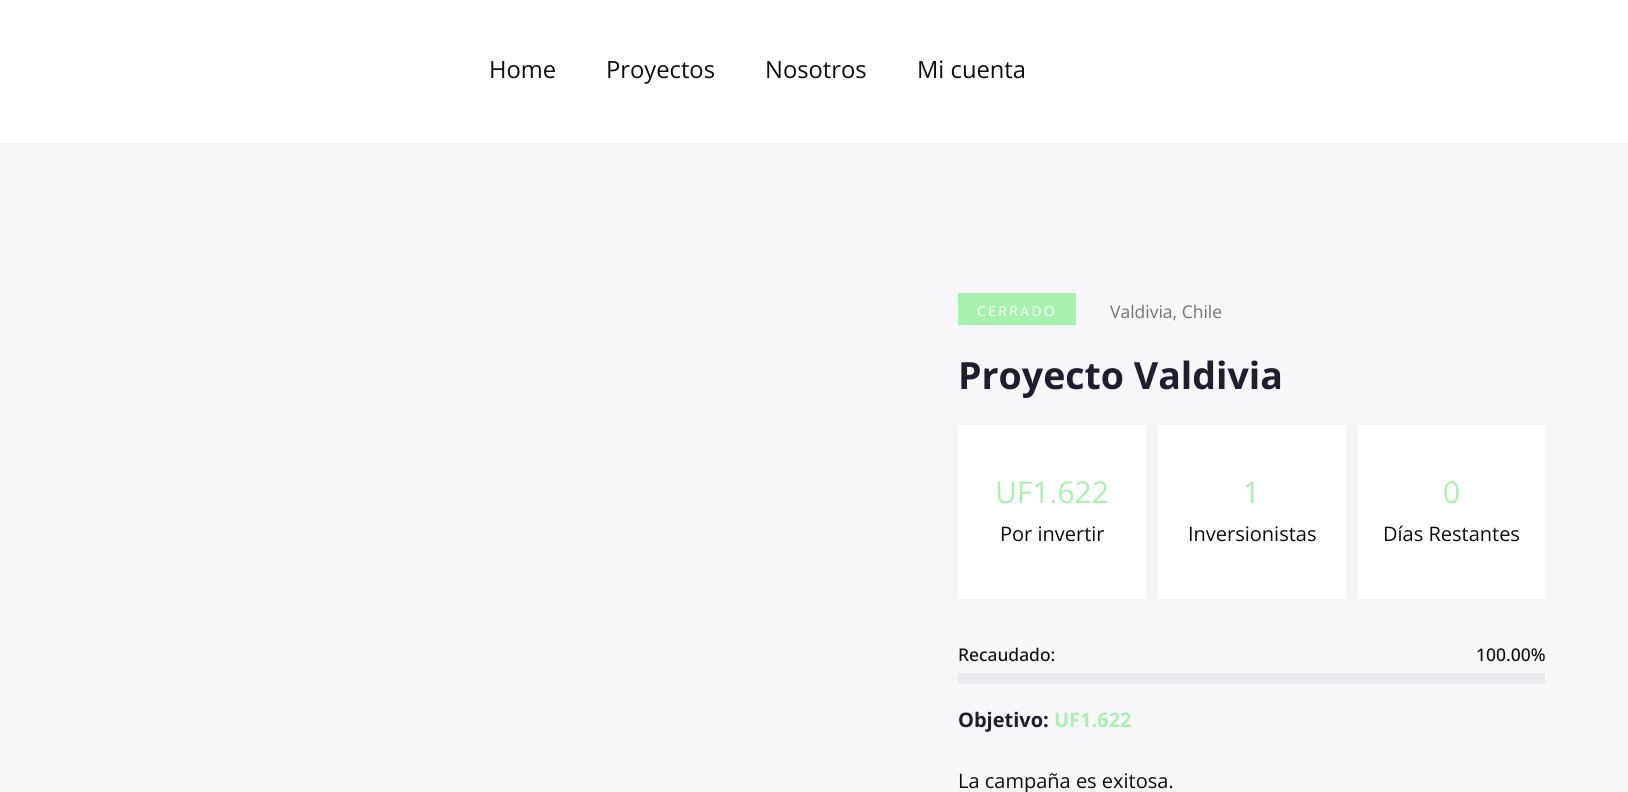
#include <cairo.h>
#include <math.h>
#include <stddef.h>

typedef struct { const char *family; double size; int italic, bold; unsigned color; } style_t;
static cairo_t *ctx;

static void ink(unsigned color) {
    cairo_set_source_rgb(ctx, (color >> 16) / 255.0, (color >> 8 & 255) / 255.0, (color & 255) / 255.0);
}

static void write(double x, double y, const char *s, const style_t *st) {
    cairo_select_font_face(ctx, st->family, st->italic ? CAIRO_FONT_SLANT_ITALIC : CAIRO_FONT_SLANT_NORMAL,
        st->bold ? CAIRO_FONT_WEIGHT_BOLD : CAIRO_FONT_WEIGHT_NORMAL);
    cairo_set_font_size(ctx, st->size);
    ink(st->color);
    cairo_move_to(ctx, x, y);
    cairo_show_text(ctx, s);
}

static void write_spaced(double x, double y, const char *s, double letter, double word) {
    cairo_move_to(ctx, x, y);
    while (*s) {
        char ch[5] = {0};
        int n = 0;
        do ch[n++] = *s++; while ((*s & 0xC0) == 0x80);
        cairo_show_text(ctx, ch);
        cairo_rel_move_to(ctx, letter + word * (*ch == ' '), 0);
    }
}

static void block(double x, double y, double w, double h, unsigned color) {
    ink(color);
    cairo_rectangle(ctx, x, y, w, h);
    cairo_fill(ctx);
}

static const style_t s1 = {"Open Sans", 23.75, 0, 0, 0x0d0d0d};
static const style_t s2 = {"Open Sans", 17.5, 0, 0, 0x737373};
static const style_t s3 = {"Open Sans", 37.5, 0, 1, 0x1b1f2e};
static const style_t s4 = {"Open Sans", 30, 0, 0, 0xa7f2ac};
static const style_t s5 = {"Open Sans", 20, 0, 0, 0x0d0d0d};
static const style_t s6 = {"Open Sans Medium", 17.5, 0, 0, 0x0d0d0d};
static const style_t s7 = {"Open Sans", 20, 0, 1, 0x1b1f2e};
static const style_t s8 = {"Open Sans", 20, 0, 1, 0xa7f2ac};

int main(void) {
    cairo_surface_t *surface = cairo_image_surface_create(CAIRO_FORMAT_RGB24, 1628, 792);
    ctx = cairo_create(surface);
    cairo_font_options_t *options = cairo_font_options_create();
    cairo_font_options_set_hint_metrics(options, CAIRO_HINT_METRICS_OFF);
    cairo_font_options_set_hint_style(options, CAIRO_HINT_STYLE_NONE);
    cairo_set_font_options(ctx, options);
    cairo_set_miter_limit(ctx, 4);
    ink(0xffffff);
    cairo_paint(ctx);
    write(489, 78, "Home", &s1);
    write(606, 78, "Proyectos", &s1);
    write(765, 78, "Nosotros", &s1);
    write(917, 78, "Mi cuenta", &s1);
    block(0, 143, 1628, 649, 0xf7f7f9);
    block(958, 293, 118, 32, 0xa7f2ac);
    cairo_set_font_size(ctx, 13.75);
    ink(0xffffff);
    write_spaced(977, 316, "CERRADO", 2.5, 0);
    write(1110, 318, "Valdivia, Chile", &s2);
    write(958, 389, "Proyecto Valdivia", &s3);
    block(958, 425, 188, 174, 0xffffff);
    write(995, 503, "UF1.622", &s4);
    write(1000, 541, "Por invertir", &s5);
    block(1158, 425, 188, 174, 0xffffff);
    write(1243, 503, "1", &s4);
    write(1188, 541, "Inversionistas", &s5);
    block(1358, 425, 187, 174, 0xffffff);
    write(1443, 503, "0", &s4);
    write(1383, 541, "Días Restantes", &s5);
    write(958, 661, "Recaudado:", &s6);
    write(1476, 661, "100.00%", &s6);
    block(958, 673, 587, 11, 0xe9ecef);
    write(958, 727, "Objetivo:", &s7);
    write(1054, 727, "UF1.622", &s8);
    write(958, 788, "La campaña es exitosa.", &s5);
    cairo_surface_write_to_png(surface, "screenshot.png");
    cairo_font_options_destroy(options);
    cairo_destroy(ctx);
    cairo_surface_destroy(surface);
    return 0;
}
